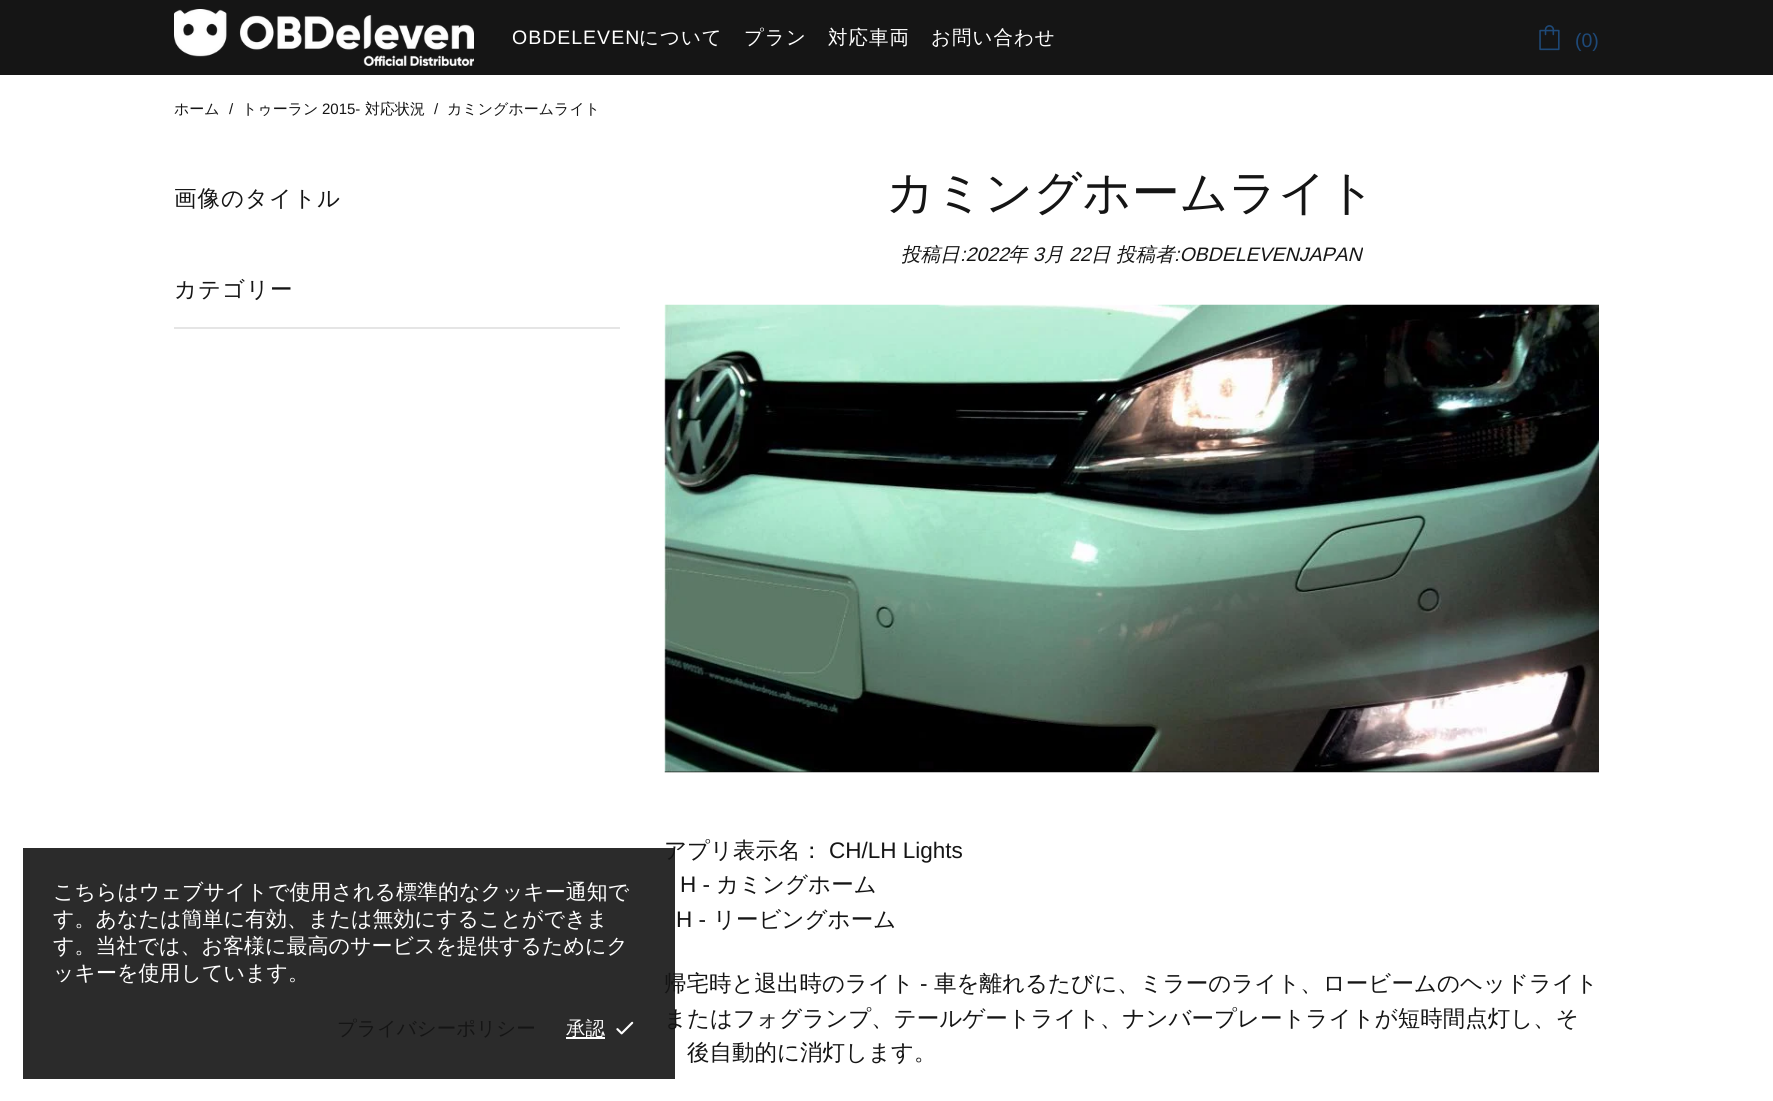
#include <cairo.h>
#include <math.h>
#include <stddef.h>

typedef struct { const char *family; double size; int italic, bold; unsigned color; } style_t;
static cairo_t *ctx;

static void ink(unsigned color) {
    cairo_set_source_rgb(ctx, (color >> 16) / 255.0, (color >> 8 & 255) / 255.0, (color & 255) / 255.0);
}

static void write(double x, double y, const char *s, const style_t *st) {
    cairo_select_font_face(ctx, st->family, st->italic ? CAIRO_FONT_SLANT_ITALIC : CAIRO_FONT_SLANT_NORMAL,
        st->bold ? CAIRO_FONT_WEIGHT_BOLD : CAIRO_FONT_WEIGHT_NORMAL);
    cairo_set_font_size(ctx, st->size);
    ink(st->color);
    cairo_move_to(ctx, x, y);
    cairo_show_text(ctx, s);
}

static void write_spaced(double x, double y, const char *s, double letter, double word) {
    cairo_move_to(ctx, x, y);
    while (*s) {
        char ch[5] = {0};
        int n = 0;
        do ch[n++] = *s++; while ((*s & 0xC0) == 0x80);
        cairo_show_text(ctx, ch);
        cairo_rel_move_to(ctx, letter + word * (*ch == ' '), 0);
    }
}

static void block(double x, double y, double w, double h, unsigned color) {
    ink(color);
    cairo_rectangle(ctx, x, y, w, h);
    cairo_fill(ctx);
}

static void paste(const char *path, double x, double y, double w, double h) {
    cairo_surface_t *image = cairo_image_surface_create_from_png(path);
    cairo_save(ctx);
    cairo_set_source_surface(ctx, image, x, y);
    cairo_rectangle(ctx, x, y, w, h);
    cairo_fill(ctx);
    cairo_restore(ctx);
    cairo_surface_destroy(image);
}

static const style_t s1 = {"Arimo", 19.5, 0, 0, 0x1e4978};
static const style_t s2 = {"WenQuanYi Zen Hei Medium", 15, 0, 0, 0x151515};
static const style_t s3 = {"Arimo", 15, 0, 0, 0x151515};
static const style_t s4 = {"WenQuanYi Zen Hei Medium", 48, 0, 0, 0x151515};
static const style_t s5 = {"WenQuanYi Zen Hei Medium", 19.5, 1, 0, 0x151515};
static const style_t s6 = {"Arimo", 19.5, 1, 0, 0x151515};
static const style_t s7 = {"WenQuanYi Zen Hei Medium", 22.5, 0, 0, 0x151515};
static const style_t s8 = {"Arimo", 22.5, 0, 0, 0x151515};
static const style_t s9 = {"WenQuanYi Zen Hei Medium", 21, 0, 0, 0xffffff};
static const style_t s10 = {"WenQuanYi Zen Hei Medium", 19.5, 0, 0, 0x151515};
static const style_t s11 = {"WenQuanYi Zen Hei Medium", 19.5, 0, 0, 0xffffff};

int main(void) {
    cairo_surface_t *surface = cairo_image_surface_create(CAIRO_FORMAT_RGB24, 1773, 1101);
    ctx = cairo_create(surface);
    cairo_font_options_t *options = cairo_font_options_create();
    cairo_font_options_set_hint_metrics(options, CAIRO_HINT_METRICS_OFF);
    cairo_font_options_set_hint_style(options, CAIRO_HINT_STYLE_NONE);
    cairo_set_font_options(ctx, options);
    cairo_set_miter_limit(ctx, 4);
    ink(0xffffff);
    cairo_paint(ctx);
    block(0, 0, 1773, 75, 0x151515);
    paste("pic1.png", 174, 9, 300, 57);
    cairo_select_font_face(ctx, "Arimo", CAIRO_FONT_SLANT_NORMAL, CAIRO_FONT_WEIGHT_NORMAL);
    cairo_set_font_size(ctx, 19.5);
    ink(0xffffff);
    write_spaced(512, 44, "OBDELEVEN", 1, 0);
    cairo_select_font_face(ctx, "WenQuanYi Zen Hei Medium", CAIRO_FONT_SLANT_NORMAL, CAIRO_FONT_WEIGHT_NORMAL);
    write_spaced(639, 44, "について", 1, 0);
    write_spaced(744, 44, "プラン", 1, 0);
    write_spaced(828, 44, "対応車両", 1, 0);
    write_spaced(931, 44, "お問い合わせ", 1, 0);
    paste("pic2.png", 1539, 25, 21, 26);
    write(1575, 47, "(0)", &s1);
    write(174, 114, "ホーム", &s2);
    write(229, 114, "/", &s3);
    write(242, 114, "トゥーラン", &s2);
    write(322, 114, "2015-", &s3);
    write(365, 114, "対応状況", &s2);
    write(434, 114, "/", &s3);
    write(447, 114, "カミングホームライト", &s2);
    cairo_set_font_size(ctx, 22.5);
    write_spaced(174, 206, "画像のタイトル", 1, 0);
    write_spaced(174, 297, "カテゴリー", 1, 0);
    block(174, 327, 446, 2, 0xe5e5e5);
    write(886, 209, "カミングホームライト", &s4);
    write(901, 261, "投稿日", &s5);
    write(960, 261, ":2022", &s6);
    write(1008, 261, "年", &s5);
    write(1033, 261, "3", &s6);
    write(1044, 261, "月", &s5);
    write(1069, 261, "22", &s6);
    write(1091, 261, "日", &s5);
    write(1116, 261, "投稿者", &s5);
    write(1174, 261, ":OBDELEVENJAPAN", &s6);
    paste("pic3.png", 664, 304, 935, 469);
    write(664, 858, "アプリ表示名：", &s7);
    write(829, 858, "CH/LH Lights", &s8);
    write(680, 892, "H -", &s8);
    write(716, 892, "カミングホーム", &s7);
    write(676, 927, "H -", &s8);
    write(713, 927, "リービングホーム", &s7);
    write(664, 991, "帰宅時と退出時のライト", &s7);
    write(920, 991, "-", &s8);
    write(934, 991, "車を離れるたびに、ミラーのライト、ロービームのヘッドライト", &s7);
    write(664, 1026, "またはフォグランプ、テールゲートライト、ナンバープレートライトが短時間点灯し、そ", &s7);
    write(687, 1060, "後自動的に消灯します。", &s7);
    cairo_set_source_rgba(ctx, 0.082, 0.082, 0.082, 0.9);
    cairo_rectangle(ctx, 23, 848, 652, 231);
    cairo_fill(ctx);
    write(53, 899, "こちらはウェブサイトで使用される標準的なクッキー通知で", &s9);
    write(53, 926, "す。あなたは簡単に有効、または無効にすることができま", &s9);
    write(53, 953, "す。当社では、お客様に最高のサービスを提供するためにク", &s9);
    write(53, 980, "ッキーを使用しています。", &s9);
    write(337, 1035, "プライバシーポリシー", &s10);
    block(566, 1037, 39, 2, 0xffffff);
    write(566, 1035, "承認", &s11);
    paste("pic4.png", 616, 1021, 18, 14);
    cairo_surface_write_to_png(surface, "screenshot.png");
    cairo_font_options_destroy(options);
    cairo_destroy(ctx);
    cairo_surface_destroy(surface);
    return 0;
}
